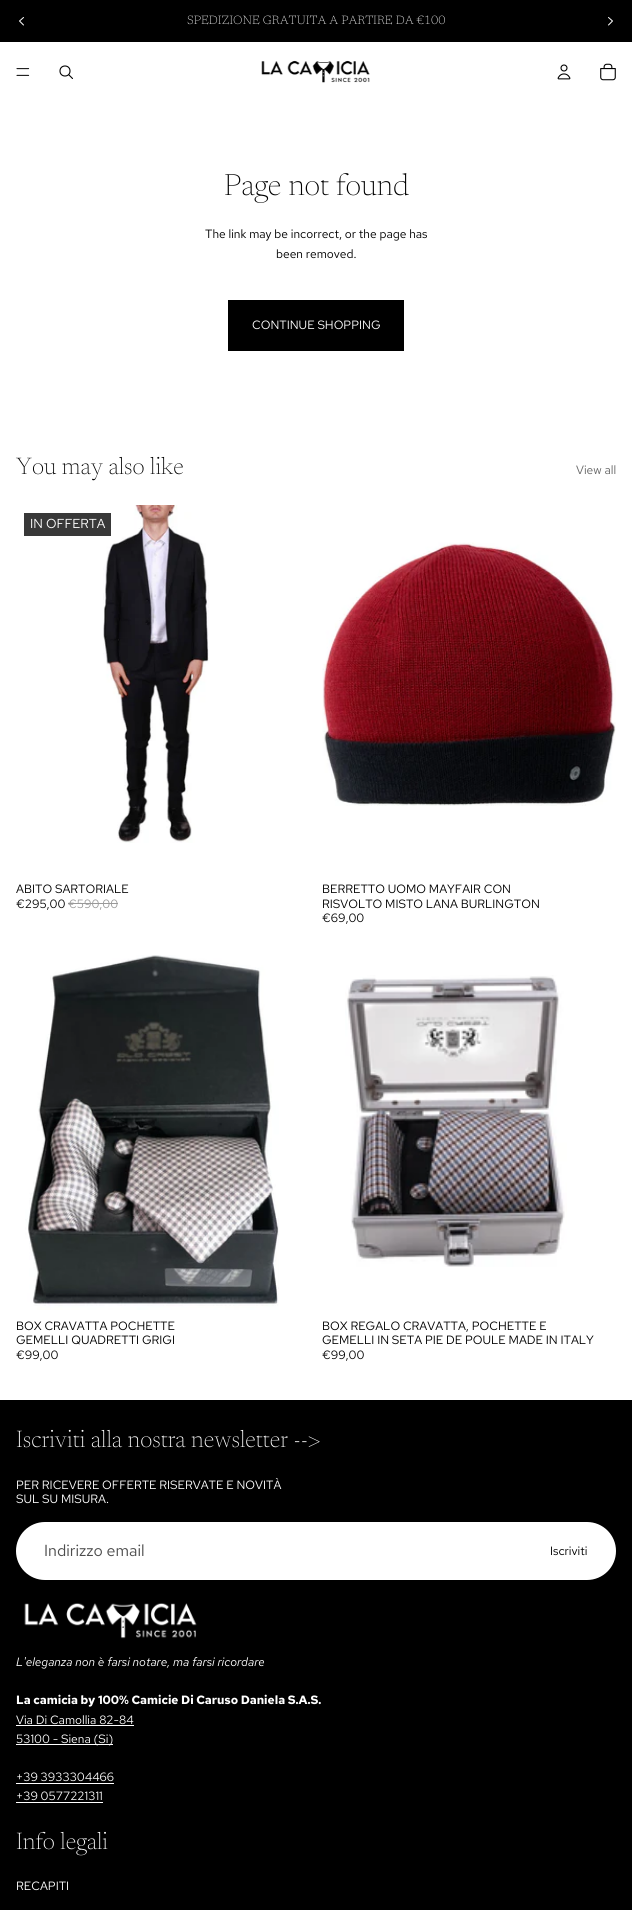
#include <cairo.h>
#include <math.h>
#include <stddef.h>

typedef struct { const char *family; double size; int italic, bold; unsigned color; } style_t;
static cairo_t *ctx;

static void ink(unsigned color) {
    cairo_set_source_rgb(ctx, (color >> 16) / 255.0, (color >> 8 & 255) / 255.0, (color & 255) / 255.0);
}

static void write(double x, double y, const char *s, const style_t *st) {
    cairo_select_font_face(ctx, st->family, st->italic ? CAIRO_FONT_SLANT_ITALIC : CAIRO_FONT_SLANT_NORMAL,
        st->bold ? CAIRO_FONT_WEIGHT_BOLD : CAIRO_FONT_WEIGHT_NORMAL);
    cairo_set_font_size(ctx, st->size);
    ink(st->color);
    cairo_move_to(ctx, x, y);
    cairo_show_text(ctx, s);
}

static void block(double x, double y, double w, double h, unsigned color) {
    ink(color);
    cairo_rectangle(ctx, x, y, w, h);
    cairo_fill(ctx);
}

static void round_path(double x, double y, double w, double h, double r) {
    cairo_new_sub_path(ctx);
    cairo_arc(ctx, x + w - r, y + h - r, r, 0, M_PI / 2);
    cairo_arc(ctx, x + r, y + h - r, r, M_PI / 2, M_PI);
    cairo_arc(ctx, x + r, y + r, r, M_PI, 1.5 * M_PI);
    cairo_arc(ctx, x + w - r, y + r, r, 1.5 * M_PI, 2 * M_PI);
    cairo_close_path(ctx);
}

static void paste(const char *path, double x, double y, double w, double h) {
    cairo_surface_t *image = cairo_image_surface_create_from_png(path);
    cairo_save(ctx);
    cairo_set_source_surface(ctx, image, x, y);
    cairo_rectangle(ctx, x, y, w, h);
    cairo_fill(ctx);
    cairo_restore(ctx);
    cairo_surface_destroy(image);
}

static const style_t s1 = {"Newsreader ExtraLight", 12, 0, 0, 0xffffff};
static const style_t s2 = {"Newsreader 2 ExtraLight", 30.5, 0, 0, 0x000000};
static const style_t s3 = {"Red Hat Text", 12, 0, 0, 0x000000};
static const style_t s4 = {"Red Hat Text", 12, 0, 0, 0xffffff};
static const style_t s5 = {"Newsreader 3 ExtraLight", 24, 0, 0, 0x000000};
static const style_t s6 = {"Red Hat Text", 12, 0, 0, 0x666666};
static const style_t s7 = {"Red Hat Text", 13, 0, 0, 0xffffff};
static const style_t s8 = {"Red Hat Text", 12, 0, 0, 0x999999};
static const style_t s9 = {"Newsreader 3 ExtraLight", 24, 0, 0, 0xffffff};
static const style_t s10 = {"Red Hat Text", 16, 0, 0, 0x4d4d4d};
static const style_t s11 = {"Red Hat Text", 12, 1, 0, 0xffffff};
static const style_t s12 = {"Red Hat Text", 12, 0, 1, 0xffffff};

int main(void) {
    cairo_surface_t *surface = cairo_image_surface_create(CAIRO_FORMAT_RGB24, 632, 1910);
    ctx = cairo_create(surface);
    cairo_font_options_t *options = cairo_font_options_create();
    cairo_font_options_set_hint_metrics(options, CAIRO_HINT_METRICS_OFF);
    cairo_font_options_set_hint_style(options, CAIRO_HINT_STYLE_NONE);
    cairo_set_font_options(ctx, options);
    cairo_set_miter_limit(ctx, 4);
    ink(0xffffff);
    cairo_paint(ctx);
    block(0, 0, 632, 42, 0x000000);
    write(187, 24, "SPEDIZIONE GRATUITA A PARTIRE DA €100", &s1);
    cairo_new_path(ctx);
    cairo_move_to(ctx, 23.5, 17.5);
    cairo_line_to(ctx, 19.5, 21);
    cairo_line_to(ctx, 23.5, 25);
    cairo_set_line_width(ctx, 1);
    cairo_set_line_cap(ctx, CAIRO_LINE_CAP_ROUND);
    cairo_set_line_join(ctx, CAIRO_LINE_JOIN_ROUND);
    cairo_stroke(ctx);
    cairo_new_path(ctx);
    cairo_move_to(ctx, 608.5, 17.5);
    cairo_line_to(ctx, 612.5, 21);
    cairo_line_to(ctx, 608.5, 25);
    cairo_stroke(ctx);
    paste("pic1.png", 16, 68, 14, 8);
    cairo_arc(ctx, 65, 71, 5, 0, 2 * M_PI);
    ink(0x000000);
    cairo_set_line_width(ctx, 1.1);
    cairo_set_line_cap(ctx, CAIRO_LINE_CAP_BUTT);
    cairo_set_line_join(ctx, CAIRO_LINE_JOIN_MITER);
    cairo_stroke(ctx);
    cairo_new_path(ctx);
    cairo_move_to(ctx, 69, 75);
    cairo_line_to(ctx, 72.5, 78.5);
    cairo_set_line_cap(ctx, CAIRO_LINE_CAP_ROUND);
    cairo_set_line_join(ctx, CAIRO_LINE_JOIN_ROUND);
    cairo_stroke(ctx);
    paste("pic2.png", 261, 60, 109, 23);
    paste("pic3.png", 557, 64, 14, 16);
    paste("pic4.png", 600, 63, 16, 18);
    write(224, 195, "Page not found", &s2);
    write(205, 238, "The link may be incorrect, or the page has", &s3);
    write(276, 258, "been removed.", &s3);
    block(228, 300, 176, 51, 0x000000);
    write(252, 329, "CONTINUE SHOPPING", &s4);
    write(16, 474, "You may also like", &s5);
    write(576, 474, "View all", &s6);
    paste("pic5.png", 103, 505, 106, 338);
    block(24, 513, 87, 23, 0x383838);
    write(30, 528, "IN OFFERTA", &s7);
    write(16, 893, "ABITO SARTORIALE", &s3);
    write(16, 908, "€295,00", &s3);
    write(68, 908, "€590,00", &s8);
    block(68, 903, 50, 1, 0x999999);
    paste("pic6.png", 322, 542, 294, 264);
    write(322, 893, "BERRETTO UOMO MAYFAIR CON", &s3);
    write(322, 908, "RISVOLTO MISTO LANA BURLINGTON", &s3);
    write(322, 922, "€69,00", &s3);
    paste("pic7.png", 25, 955, 254, 355);
    write(16, 1330, "BOX CRAVATTA POCHETTE", &s3);
    write(16, 1344, "GEMELLI QUADRETTI GRIGI", &s3);
    write(16, 1359, "€99,00", &s3);
    paste("pic8.png", 345, 975, 222, 292);
    write(322, 1330, "BOX REGALO CRAVATTA, POCHETTE E", &s3);
    write(322, 1344, "GEMELLI IN SETA PIE DE POULE MADE IN ITALY", &s3);
    write(322, 1359, "€99,00", &s3);
    block(0, 1400, 632, 510, 0x000000);
    write(16, 1447, "Iscriviti alla nostra newsletter -->", &s9);
    write(16, 1489, "PER RICEVERE OFFERTE RISERVATE E NOVITÀ", &s4);
    write(16, 1503, "SUL SU MISURA.", &s4);
    round_path(16, 1522, 600, 58, 29);
    cairo_fill(ctx);
    write(44, 1556, "Indirizzo email", &s10);
    write(550, 1555, "Iscriviti", &s3);
    paste("pic9.png", 24, 1603, 173, 36);
    write(16, 1666, "L'eleganza non è farsi notare, ma farsi ricordare", &s11);
    write(16, 1704, "La camicia by 100% Camicie Di Caruso Daniela S.A.S.", &s12);
    write(16, 1724, "Via Di Camollia 82-84", &s4);
    block(16, 1725, 118, 1, 0xffffff);
    block(16, 1744, 97, 1, 0xffffff);
    write(16, 1743, "53100 - Siena (Si)", &s4);
    write(16, 1781, "+39 3933304466", &s4);
    block(16, 1783, 98, 1, 0xffffff);
    write(16, 1800, "+39 0577221311", &s4);
    block(16, 1802, 87, 1, 0xffffff);
    write(16, 1849, "Info legali", &s9);
    write(16, 1890, "RECAPITI", &s4);
    cairo_surface_write_to_png(surface, "screenshot.png");
    cairo_font_options_destroy(options);
    cairo_destroy(ctx);
    cairo_surface_destroy(surface);
    return 0;
}
